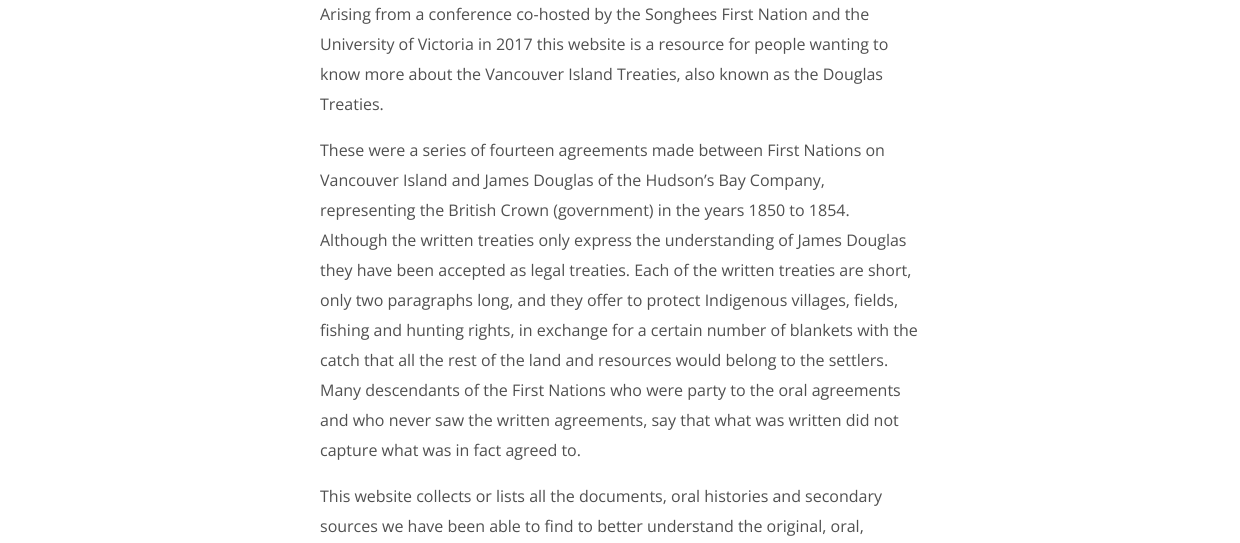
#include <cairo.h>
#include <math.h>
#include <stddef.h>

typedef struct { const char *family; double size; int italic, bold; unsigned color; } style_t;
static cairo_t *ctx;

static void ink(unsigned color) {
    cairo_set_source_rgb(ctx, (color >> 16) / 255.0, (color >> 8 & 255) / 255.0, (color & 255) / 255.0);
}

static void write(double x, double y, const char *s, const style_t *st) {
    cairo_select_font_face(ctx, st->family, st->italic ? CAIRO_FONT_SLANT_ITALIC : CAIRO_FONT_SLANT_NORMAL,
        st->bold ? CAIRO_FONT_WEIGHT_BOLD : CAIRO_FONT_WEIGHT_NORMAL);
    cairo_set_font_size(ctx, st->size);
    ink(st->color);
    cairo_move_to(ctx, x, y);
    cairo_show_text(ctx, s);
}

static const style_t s1 = {"Open Sans", 16, 0, 0, 0x505050};

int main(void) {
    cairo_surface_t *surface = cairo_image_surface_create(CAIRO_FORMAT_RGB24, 1240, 543);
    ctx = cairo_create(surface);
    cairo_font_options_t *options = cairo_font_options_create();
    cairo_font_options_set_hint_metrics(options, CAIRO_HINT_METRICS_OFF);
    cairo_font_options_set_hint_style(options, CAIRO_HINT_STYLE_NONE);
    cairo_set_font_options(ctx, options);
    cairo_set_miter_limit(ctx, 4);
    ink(0xffffff);
    cairo_paint(ctx);
    write(320, 20, "Arising from a conference co-hosted by the Songhees First Nation and the", &s1);
    write(320, 50, "University of Victoria in 2017 this website is a resource for people wanting to", &s1);
    write(320, 80, "know more about the Vancouver Island Treaties, also known as the Douglas", &s1);
    write(320, 110, "Treaties.", &s1);
    write(320, 156, "These were a series of fourteen agreements made between First Nations on", &s1);
    write(320, 186, "Vancouver Island and James Douglas of the Hudson’s Bay Company,", &s1);
    write(320, 216, "representing the British Crown (government) in the years 1850 to 1854.", &s1);
    write(320, 246, "Although the written treaties only express the understanding of James Douglas", &s1);
    write(320, 276, "they have been accepted as legal treaties. Each of the written treaties are short,", &s1);
    write(320, 306, "only two paragraphs long, and they offer to protect Indigenous villages, fields,", &s1);
    write(320, 336, "fishing and hunting rights, in exchange for a certain number of blankets with the", &s1);
    write(320, 366, "catch that all the rest of the land and resources would belong to the settlers.", &s1);
    write(320, 396, "Many descendants of the First Nations who were party to the oral agreements", &s1);
    write(320, 426, "and who never saw the written agreements, say that what was written did not", &s1);
    write(320, 456, "capture what was in fact agreed to.", &s1);
    write(320, 502, "This website collects or lists all the documents, oral histories and secondary", &s1);
    write(320, 532, "sources we have been able to find to better understand the original, oral,", &s1);
    cairo_surface_write_to_png(surface, "screenshot.png");
    cairo_font_options_destroy(options);
    cairo_destroy(ctx);
    cairo_surface_destroy(surface);
    return 0;
}
